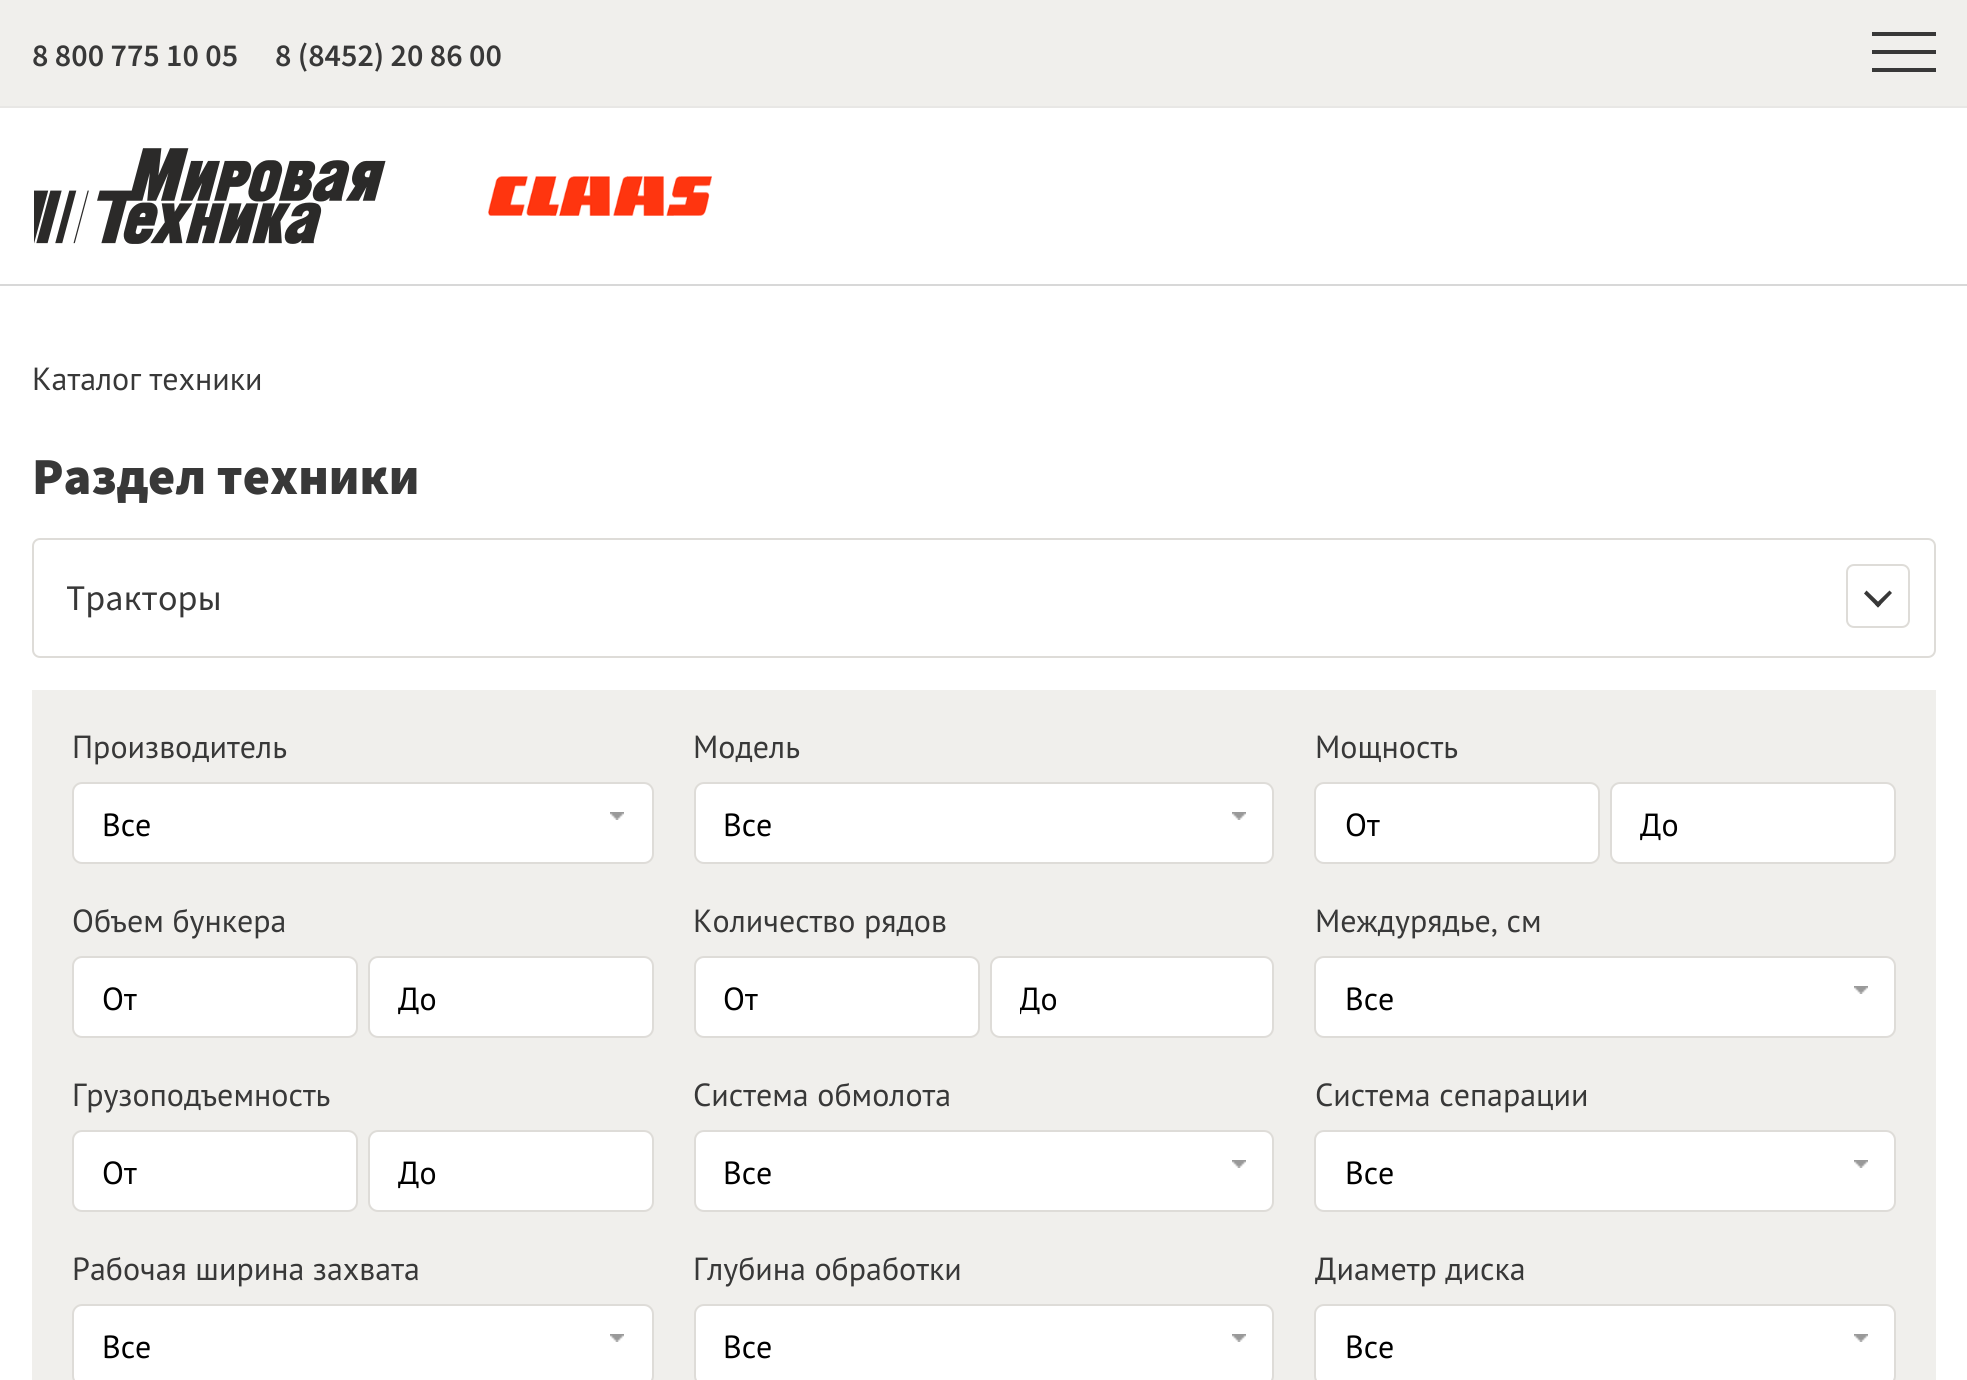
#include <cairo.h>
#include <math.h>
#include <stddef.h>

typedef struct { const char *family; double size; int italic, bold; unsigned color; } style_t;
static cairo_t *ctx;

static void ink(unsigned color) {
    cairo_set_source_rgb(ctx, (color >> 16) / 255.0, (color >> 8 & 255) / 255.0, (color & 255) / 255.0);
}

static void write(double x, double y, const char *s, const style_t *st) {
    cairo_select_font_face(ctx, st->family, st->italic ? CAIRO_FONT_SLANT_ITALIC : CAIRO_FONT_SLANT_NORMAL,
        st->bold ? CAIRO_FONT_WEIGHT_BOLD : CAIRO_FONT_WEIGHT_NORMAL);
    cairo_set_font_size(ctx, st->size);
    ink(st->color);
    cairo_move_to(ctx, x, y);
    cairo_show_text(ctx, s);
}

static void block(double x, double y, double w, double h, unsigned color) {
    ink(color);
    cairo_rectangle(ctx, x, y, w, h);
    cairo_fill(ctx);
}

static void round_path(double x, double y, double w, double h, double r) {
    cairo_new_sub_path(ctx);
    cairo_arc(ctx, x + w - r, y + h - r, r, 0, M_PI / 2);
    cairo_arc(ctx, x + r, y + h - r, r, M_PI / 2, M_PI);
    cairo_arc(ctx, x + r, y + r, r, M_PI, 1.5 * M_PI);
    cairo_arc(ctx, x + w - r, y + r, r, 1.5 * M_PI, 2 * M_PI);
    cairo_close_path(ctx);
}

static void paste(const char *path, double x, double y, double w, double h) {
    cairo_surface_t *image = cairo_image_surface_create_from_png(path);
    cairo_save(ctx);
    cairo_set_source_surface(ctx, image, x, y);
    cairo_rectangle(ctx, x, y, w, h);
    cairo_fill(ctx);
    cairo_restore(ctx);
    cairo_surface_destroy(image);
}

static const style_t s1 = {"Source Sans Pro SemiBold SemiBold", 32, 0, 0, 0x383838};
static const style_t s2 = {"PT Sans", 32, 0, 0, 0x383838};
static const style_t s3 = {"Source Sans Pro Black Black", 52, 0, 0, 0x383838};
static const style_t s4 = {"Source Sans Pro", 36, 0, 0, 0x383838};
static const style_t s5 = {"PT Sans", 32, 0, 0, 0x000000};

int main(void) {
    cairo_surface_t *surface = cairo_image_surface_create(CAIRO_FORMAT_RGB24, 1967, 1380);
    ctx = cairo_create(surface);
    cairo_font_options_t *options = cairo_font_options_create();
    cairo_font_options_set_hint_metrics(options, CAIRO_HINT_METRICS_OFF);
    cairo_font_options_set_hint_style(options, CAIRO_HINT_STYLE_NONE);
    cairo_set_font_options(ctx, options);
    cairo_set_miter_limit(ctx, 4);
    ink(0xffffff);
    cairo_paint(ctx);
    block(0, 0, 1967, 106, 0xf0efec);
    block(0, 106, 1967, 2, 0xe8e7e5);
    write(32, 66, "8 800 775 10 05", &s1);
    write(275, 66, "8 (8452) 20 86 00", &s1);
    block(1872, 32, 64, 4, 0x383838);
    block(1872, 50, 64, 4, 0x383838);
    block(1872, 68, 64, 4, 0x383838);
    block(0, 284, 1967, 2, 0xd8d8d8);
    paste("pic1.png", 34, 148, 352, 96);
    paste("pic2.png", 488, 176, 224, 40);
    write(32, 390, "Каталог техники", &s2);
    write(32, 494, "Раздел техники", &s3);
    round_path(33, 539, 1902, 118, 7);
    ink(0xdedcd8);
    cairo_stroke(ctx);
    write(66, 610, "Тракторы", &s4);
    round_path(1847, 565, 62, 62, 7);
    ink(0xdedcd8);
    cairo_stroke(ctx);
    ink(0x383838);
    cairo_new_path(ctx);
    cairo_move_to(ctx, 1892, 593);
    cairo_line_to(ctx, 1878, 607.5);
    cairo_line_to(ctx, 1875, 604.5);
    cairo_line_to(ctx, 1889.5, 590.5);
    cairo_close_path(ctx);
    cairo_fill(ctx);
    cairo_new_path(ctx);
    cairo_move_to(ctx, 1881, 604.5);
    cairo_line_to(ctx, 1878, 607.5);
    cairo_line_to(ctx, 1864, 593.5);
    cairo_line_to(ctx, 1866.5, 590.5);
    cairo_close_path(ctx);
    cairo_fill(ctx);
    block(32, 690, 1904, 690, 0xf0efec);
    write(72, 758, "Производитель", &s2);
    ink(0xffffff);
    round_path(73, 783, 580, 80, 9);
    cairo_fill_preserve(ctx);
    ink(0xdedcd8);
    cairo_stroke(ctx);
    write(102, 836, "Все", &s5);
    paste("pic3.png", 610, 812, 14, 8);
    write(693, 758, "Модель", &s2);
    ink(0xffffff);
    round_path(695, 783, 578, 80, 9);
    cairo_fill_preserve(ctx);
    ink(0xdedcd8);
    cairo_stroke(ctx);
    write(723, 836, "Все", &s5);
    paste("pic3.png", 1232, 812, 14, 8);
    write(1315, 758, "Мощность", &s2);
    ink(0xffffff);
    round_path(1315, 783, 284, 80, 9);
    cairo_fill_preserve(ctx);
    ink(0xdedcd8);
    cairo_stroke(ctx);
    write(1345, 836, "От", &s5);
    ink(0xffffff);
    round_path(1611, 783, 284, 80, 9);
    cairo_fill_preserve(ctx);
    ink(0xdedcd8);
    cairo_stroke(ctx);
    write(1640, 836, "До", &s5);
    write(72, 932, "Объем бункера", &s2);
    ink(0xffffff);
    round_path(73, 957, 284, 80, 9);
    cairo_fill_preserve(ctx);
    ink(0xdedcd8);
    cairo_stroke(ctx);
    write(102, 1010, "От", &s5);
    ink(0xffffff);
    round_path(369, 957, 284, 80, 9);
    cairo_fill_preserve(ctx);
    ink(0xdedcd8);
    cairo_stroke(ctx);
    cairo_save(ctx);
    cairo_rectangle(ctx, 398, 978, 226, 40);
    cairo_clip(ctx);
    write(398, 1010, "До", &s5);
    cairo_restore(ctx);
    write(693, 932, "Количество рядов", &s2);
    ink(0xffffff);
    round_path(695, 957, 284, 80, 9);
    cairo_fill_preserve(ctx);
    ink(0xdedcd8);
    cairo_stroke(ctx);
    write(723, 1010, "От", &s5);
    ink(0xffffff);
    round_path(991, 957, 282, 80, 9);
    cairo_fill_preserve(ctx);
    ink(0xdedcd8);
    cairo_stroke(ctx);
    cairo_save(ctx);
    cairo_rectangle(ctx, 1020, 978, 224, 40);
    cairo_clip(ctx);
    write(1019, 1010, "До", &s5);
    cairo_restore(ctx);
    write(1315, 932, "Междурядье, см", &s2);
    ink(0xffffff);
    round_path(1315, 957, 580, 80, 9);
    cairo_fill_preserve(ctx);
    ink(0xdedcd8);
    cairo_stroke(ctx);
    write(1345, 1010, "Все", &s5);
    paste("pic3.png", 1854, 986, 14, 8);
    write(72, 1106, "Грузоподъемность", &s2);
    ink(0xffffff);
    round_path(73, 1131, 284, 80, 9);
    cairo_fill_preserve(ctx);
    ink(0xdedcd8);
    cairo_stroke(ctx);
    write(102, 1184, "От", &s5);
    ink(0xffffff);
    round_path(369, 1131, 284, 80, 9);
    cairo_fill_preserve(ctx);
    ink(0xdedcd8);
    cairo_stroke(ctx);
    cairo_save(ctx);
    cairo_rectangle(ctx, 398, 1152, 226, 40);
    cairo_clip(ctx);
    write(398, 1184, "До", &s5);
    cairo_restore(ctx);
    write(693, 1106, "Система обмолота", &s2);
    ink(0xffffff);
    round_path(695, 1131, 578, 80, 9);
    cairo_fill_preserve(ctx);
    ink(0xdedcd8);
    cairo_stroke(ctx);
    write(723, 1184, "Все", &s5);
    paste("pic3.png", 1232, 1160, 14, 8);
    write(1315, 1106, "Система сепарации", &s2);
    ink(0xffffff);
    round_path(1315, 1131, 580, 80, 9);
    cairo_fill_preserve(ctx);
    ink(0xdedcd8);
    cairo_stroke(ctx);
    write(1345, 1184, "Все", &s5);
    paste("pic3.png", 1854, 1160, 14, 8);
    write(72, 1280, "Рабочая ширина захвата", &s2);
    ink(0xffffff);
    round_path(73, 1305, 580, 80, 9);
    cairo_fill_preserve(ctx);
    ink(0xdedcd8);
    cairo_stroke(ctx);
    write(102, 1358, "Все", &s5);
    paste("pic3.png", 610, 1334, 14, 8);
    write(693, 1280, "Глубина обработки", &s2);
    ink(0xffffff);
    round_path(695, 1305, 578, 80, 9);
    cairo_fill_preserve(ctx);
    ink(0xdedcd8);
    cairo_stroke(ctx);
    write(723, 1358, "Все", &s5);
    paste("pic3.png", 1232, 1334, 14, 8);
    write(1315, 1280, "Диаметр диска", &s2);
    ink(0xffffff);
    round_path(1315, 1305, 580, 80, 9);
    cairo_fill_preserve(ctx);
    ink(0xdedcd8);
    cairo_stroke(ctx);
    write(1345, 1358, "Все", &s5);
    paste("pic3.png", 1854, 1334, 14, 8);
    cairo_surface_write_to_png(surface, "screenshot.png");
    cairo_font_options_destroy(options);
    cairo_destroy(ctx);
    cairo_surface_destroy(surface);
    return 0;
}
